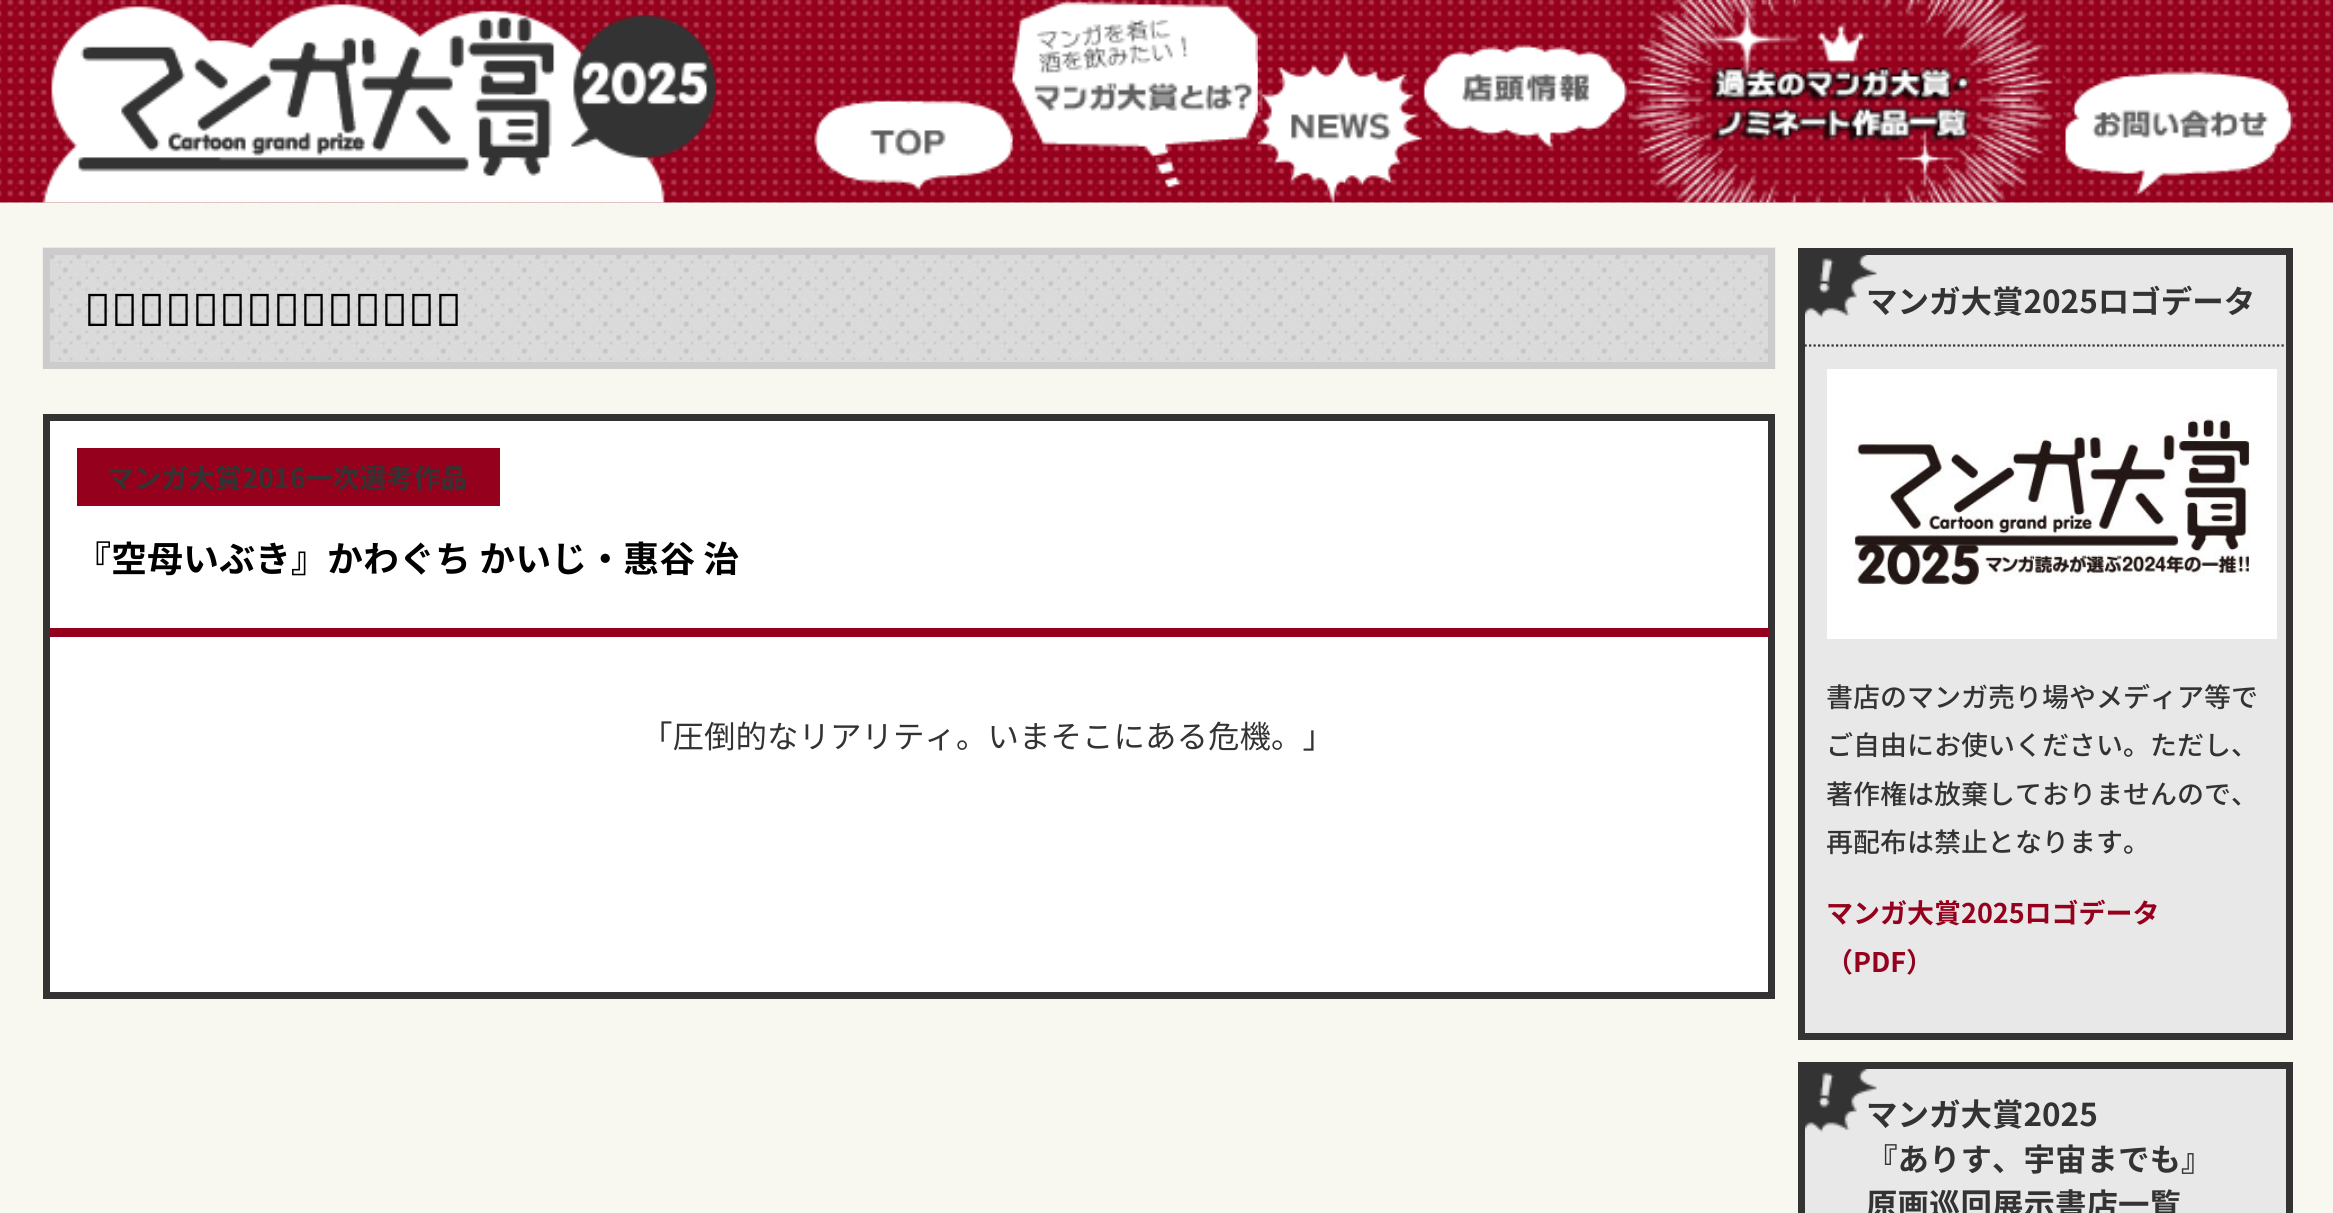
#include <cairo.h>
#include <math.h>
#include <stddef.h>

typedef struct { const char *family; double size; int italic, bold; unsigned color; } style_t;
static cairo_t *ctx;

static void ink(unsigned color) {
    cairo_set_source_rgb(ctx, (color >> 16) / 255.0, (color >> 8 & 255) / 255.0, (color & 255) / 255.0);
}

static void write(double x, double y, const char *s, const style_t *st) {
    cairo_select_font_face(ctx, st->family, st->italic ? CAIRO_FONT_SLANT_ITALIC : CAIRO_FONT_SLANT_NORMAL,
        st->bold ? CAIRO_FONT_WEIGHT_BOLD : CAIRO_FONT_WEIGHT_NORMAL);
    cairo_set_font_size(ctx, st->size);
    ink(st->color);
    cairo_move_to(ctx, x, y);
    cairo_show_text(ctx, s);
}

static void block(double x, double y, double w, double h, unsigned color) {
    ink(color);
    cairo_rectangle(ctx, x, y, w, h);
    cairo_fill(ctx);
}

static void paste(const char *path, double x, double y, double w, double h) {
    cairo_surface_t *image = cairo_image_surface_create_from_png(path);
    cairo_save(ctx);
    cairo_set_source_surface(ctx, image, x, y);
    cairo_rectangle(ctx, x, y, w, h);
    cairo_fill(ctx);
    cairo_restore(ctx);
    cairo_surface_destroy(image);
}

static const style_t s1 = {"Noto Sans Thin", 45, 0, 0, 0x000000};
static const style_t s2 = {"Noto Sans JP", 27, 0, 1, 0x333333};
static const style_t s3 = {"Noto Sans JP", 36, 0, 1, 0x000000};
static const style_t s4 = {"Noto Sans JP", 31.5, 0, 0, 0x333333};
static const style_t s5 = {"Noto Sans JP", 31.5, 0, 1, 0x333333};
static const style_t s6 = {"Noto Sans JP Medium", 27, 0, 0, 0x333333};
static const style_t s7 = {"Noto Sans JP", 27, 0, 1, 0x95001c};

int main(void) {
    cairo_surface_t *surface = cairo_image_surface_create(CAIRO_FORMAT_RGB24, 2333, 1213);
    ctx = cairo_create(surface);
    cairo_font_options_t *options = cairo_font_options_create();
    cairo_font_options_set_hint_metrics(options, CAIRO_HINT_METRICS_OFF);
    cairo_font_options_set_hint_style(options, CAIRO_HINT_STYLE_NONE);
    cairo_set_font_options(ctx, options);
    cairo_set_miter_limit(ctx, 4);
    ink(0xf8f8f0);
    cairo_paint(ctx);
    paste("pic1.png", 0, 0, 2333, 203);
    paste("pic2.png", 42, 4, 675, 199);
    paste("pic3.png", 814, 100, 199, 92);
    paste("pic4.png", 1012, 1, 246, 187);
    paste("pic5.png", 1257, 51, 165, 152);
    paste("pic6.png", 1423, 44, 205, 103);
    paste("pic7.png", 1629, 0, 424, 203);
    paste("pic8.png", 2063, 71, 230, 124);
    paste("pic9.png", 42, 247, 1734, 122);
    cairo_rectangle(ctx, 46.5, 251.5, 1725, 114);
    ink(0xcccccc);
    cairo_set_line_width(ctx, 7);
    cairo_stroke(ctx);
    write(84, 326, "選考作品へのおすすめコメント", &s1);
    ink(0xffffff);
    cairo_rectangle(ctx, 46.5, 417.5, 1725, 578);
    cairo_fill_preserve(ctx);
    ink(0x333333);
    cairo_stroke(ctx);
    block(50, 628, 1719, 9, 0x95001c);
    block(77, 448, 423, 58, 0x95001c);
    write(107, 488, "マンガ大賞2016一次選考作品", &s2);
    write(75, 572, "『空母いぶき』かわぐち かいじ・惠谷 治", &s3);
    write(641, 748, "「圧倒的なリアリティ。いまそこにある危機。」", &s4);
    block(1805, 255, 481, 778, 0xe8e8e8);
    paste("pic10.png", 1805, 255, 72, 63);
    cairo_rectangle(ctx, 1801.5, 251.5, 488, 785);
    ink(0x333333);
    cairo_stroke(ctx);
    cairo_new_path(ctx);
    cairo_move_to(ctx, 1804.5, 345.5);
    cairo_line_to(ctx, 2286, 345.5);
    cairo_set_line_width(ctx, 2.2);
    cairo_set_dash(ctx, (double[]){2.25, 2.25}, 2, 0);
    cairo_stroke(ctx);
    write(1866, 313, "マンガ大賞2025ロゴデータ", &s5);
    paste("pic11.png", 1827, 369, 450, 270);
    write(1826, 707, "書店のマンガ売り場やメディア等で", &s6);
    write(1826, 755, "ご自由にお使いください。ただし、", &s6);
    write(1826, 804, "著作権は放棄しておりませんので、", &s6);
    write(1826, 852, "再配布は禁止となります。", &s6);
    write(1826, 923, "マンガ大賞2025ロゴデータ", &s7);
    write(1826, 972, "（PDF）", &s7);
    block(1805, 1069, 481, 144, 0xe8e8e8);
    paste("pic12.png", 1805, 1069, 72, 63);
    cairo_rectangle(ctx, 1801.5, 1065.5, 488, 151);
    ink(0x333333);
    cairo_set_line_width(ctx, 7);
    cairo_set_dash(ctx, NULL, 0, 0);
    cairo_stroke(ctx);
    write(1866, 1126, "マンガ大賞2025", &s5);
    write(1866, 1171, "『ありす、宇宙までも』", &s5);
    write(1866, 1216, "原画巡回展示書店一覧", &s5);
    cairo_surface_write_to_png(surface, "screenshot.png");
    cairo_font_options_destroy(options);
    cairo_destroy(ctx);
    cairo_surface_destroy(surface);
    return 0;
}
